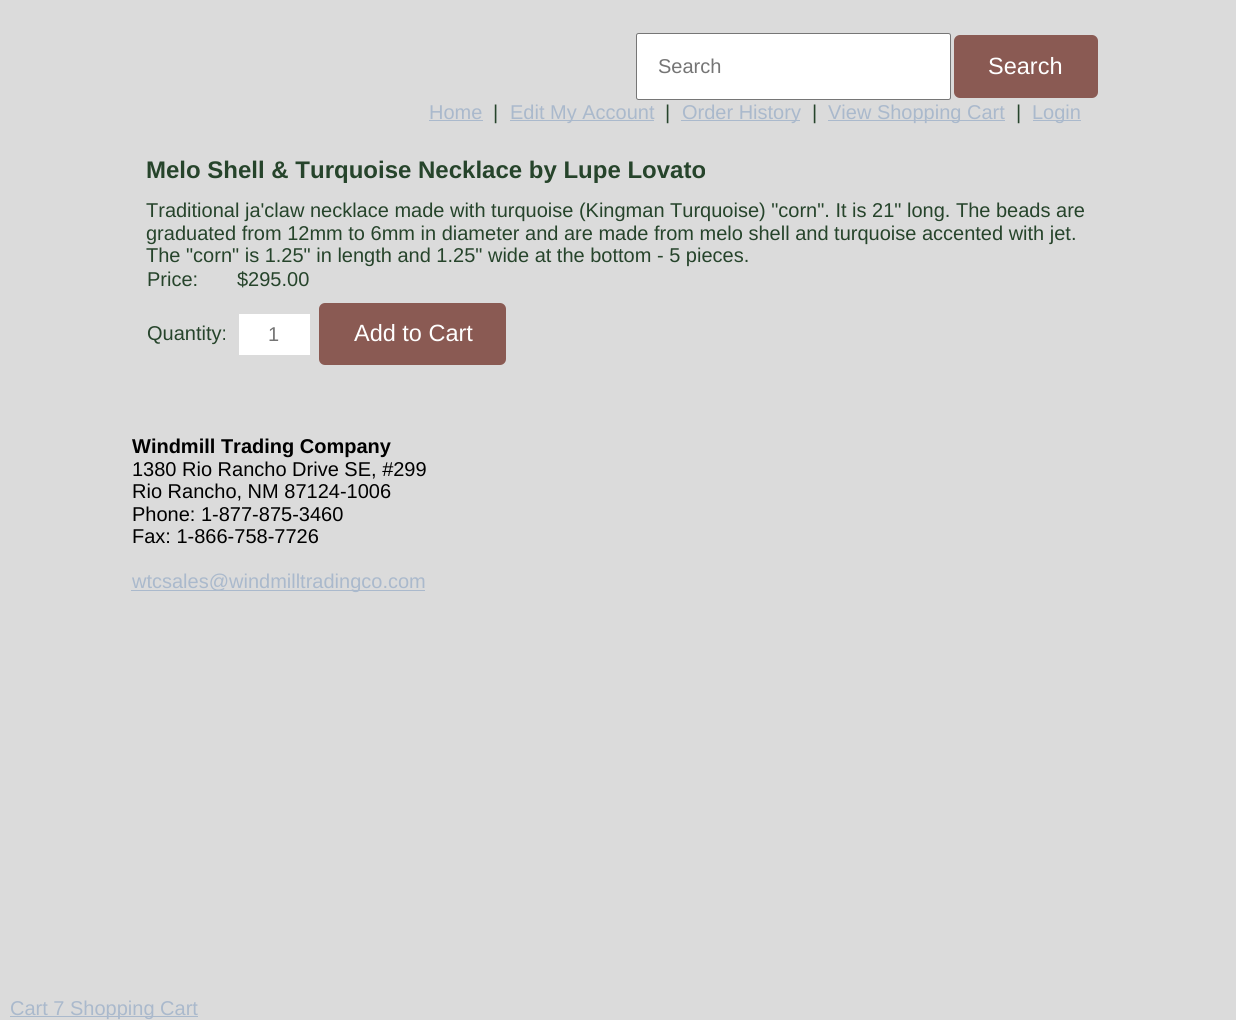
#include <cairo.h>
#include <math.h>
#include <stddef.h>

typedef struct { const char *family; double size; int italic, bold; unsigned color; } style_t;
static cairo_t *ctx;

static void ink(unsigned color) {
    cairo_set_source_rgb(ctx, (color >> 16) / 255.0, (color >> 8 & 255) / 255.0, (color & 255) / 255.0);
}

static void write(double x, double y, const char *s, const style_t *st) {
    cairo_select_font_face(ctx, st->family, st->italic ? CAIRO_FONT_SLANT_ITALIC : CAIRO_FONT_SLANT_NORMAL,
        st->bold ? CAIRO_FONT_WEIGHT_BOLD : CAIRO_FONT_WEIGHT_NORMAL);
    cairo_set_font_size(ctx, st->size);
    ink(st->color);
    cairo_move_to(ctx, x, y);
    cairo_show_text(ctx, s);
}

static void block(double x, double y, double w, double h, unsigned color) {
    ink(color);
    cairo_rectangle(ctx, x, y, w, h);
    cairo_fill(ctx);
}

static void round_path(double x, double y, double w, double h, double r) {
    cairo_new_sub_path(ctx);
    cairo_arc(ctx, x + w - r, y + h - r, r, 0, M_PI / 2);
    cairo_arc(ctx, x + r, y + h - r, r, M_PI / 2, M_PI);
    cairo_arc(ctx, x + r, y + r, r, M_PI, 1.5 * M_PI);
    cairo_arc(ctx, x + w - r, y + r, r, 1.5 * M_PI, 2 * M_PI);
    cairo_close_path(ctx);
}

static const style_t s1 = {"Liberation Sans", 20, 0, 0, 0x757575};
static const style_t s2 = {"Liberation Sans", 23.5, 0, 0, 0xffffff};
static const style_t s3 = {"Liberation Sans", 20, 0, 0, 0xaab9cc};
static const style_t s4 = {"Liberation Sans", 20, 0, 0, 0x26442b};
static const style_t s5 = {"Liberation Sans", 24, 0, 1, 0x26442b};
static const style_t s6 = {"Liberation Sans", 20, 0, 1, 0x000000};
static const style_t s7 = {"Liberation Sans", 20, 0, 0, 0x000000};

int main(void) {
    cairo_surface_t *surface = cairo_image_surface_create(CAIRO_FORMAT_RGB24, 1236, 1020);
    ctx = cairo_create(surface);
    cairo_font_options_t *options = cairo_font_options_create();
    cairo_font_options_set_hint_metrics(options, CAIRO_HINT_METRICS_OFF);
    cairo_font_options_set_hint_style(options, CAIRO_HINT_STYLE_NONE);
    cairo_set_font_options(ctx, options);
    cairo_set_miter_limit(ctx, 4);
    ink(0xdbdbdb);
    cairo_paint(ctx);
    ink(0xffffff);
    round_path(636.5, 33.5, 314, 66, 2);
    cairo_fill_preserve(ctx);
    ink(0x767676);
    cairo_set_line_width(ctx, 1);
    cairo_stroke(ctx);
    write(658, 73, "Search", &s1);
    ink(0x8a5a53);
    round_path(954, 35, 144, 63, 6);
    cairo_fill(ctx);
    write(988, 74, "Search", &s2);
    write(429, 119, "Home", &s3);
    block(429, 120, 54, 1, 0xaab9cc);
    write(493, 119, "|", &s4);
    block(510, 120, 144, 1, 0xaab9cc);
    write(510, 119, "Edit My Account", &s3);
    write(665, 119, "|", &s4);
    block(681, 120, 119, 1, 0xaab9cc);
    write(682, 119, "Order History", &s3);
    write(812, 119, "|", &s4);
    block(828, 120, 177, 1, 0xaab9cc);
    write(828, 119, "View Shopping Cart", &s3);
    write(1016, 119, "|", &s4);
    block(1033, 120, 48, 1, 0xaab9cc);
    write(1032, 119, "Login", &s3);
    write(146, 178, "Melo Shell & Turquoise Necklace by Lupe Lovato", &s5);
    write(146, 217, "Traditional ja'claw necklace made with turquoise (Kingman Turquoise) \"corn\". It is 21\" long. The beads are", &s4);
    write(146, 240, "graduated from 12mm to 6mm in diameter and are made from melo shell and turquoise accented with jet.", &s4);
    write(146, 262, "The \"corn\" is 1.25\" in length and 1.25\" wide at the bottom - 5 pieces.", &s4);
    write(147, 286, "Price:", &s4);
    write(237, 286, "$295.00", &s4);
    write(147, 340, "Quantity:", &s4);
    block(239, 314, 71, 41, 0xffffff);
    write(268, 341, "1", &s1);
    ink(0x8a5a53);
    round_path(319, 303, 187, 62, 6);
    cairo_fill(ctx);
    write(354, 341, "Add to Cart", &s2);
    write(132, 453, "Windmill Trading Company", &s6);
    write(132, 476, "1380 Rio Rancho Drive SE, #299", &s7);
    write(132, 498, "Rio Rancho, NM 87124-1006", &s7);
    write(132, 521, "Phone: 1-877-875-3460", &s7);
    write(132, 543, "Fax: 1-866-758-7726", &s7);
    block(131, 590, 294, 1, 0xaab9cc);
    write(132, 588, "wtcsales@windmilltradingco.com", &s3);
    block(10, 1016, 188, 1, 0xaab9cc);
    write(10, 1015, "Cart 7 Shopping Cart", &s3);
    cairo_surface_write_to_png(surface, "screenshot.png");
    cairo_font_options_destroy(options);
    cairo_destroy(ctx);
    cairo_surface_destroy(surface);
    return 0;
}
